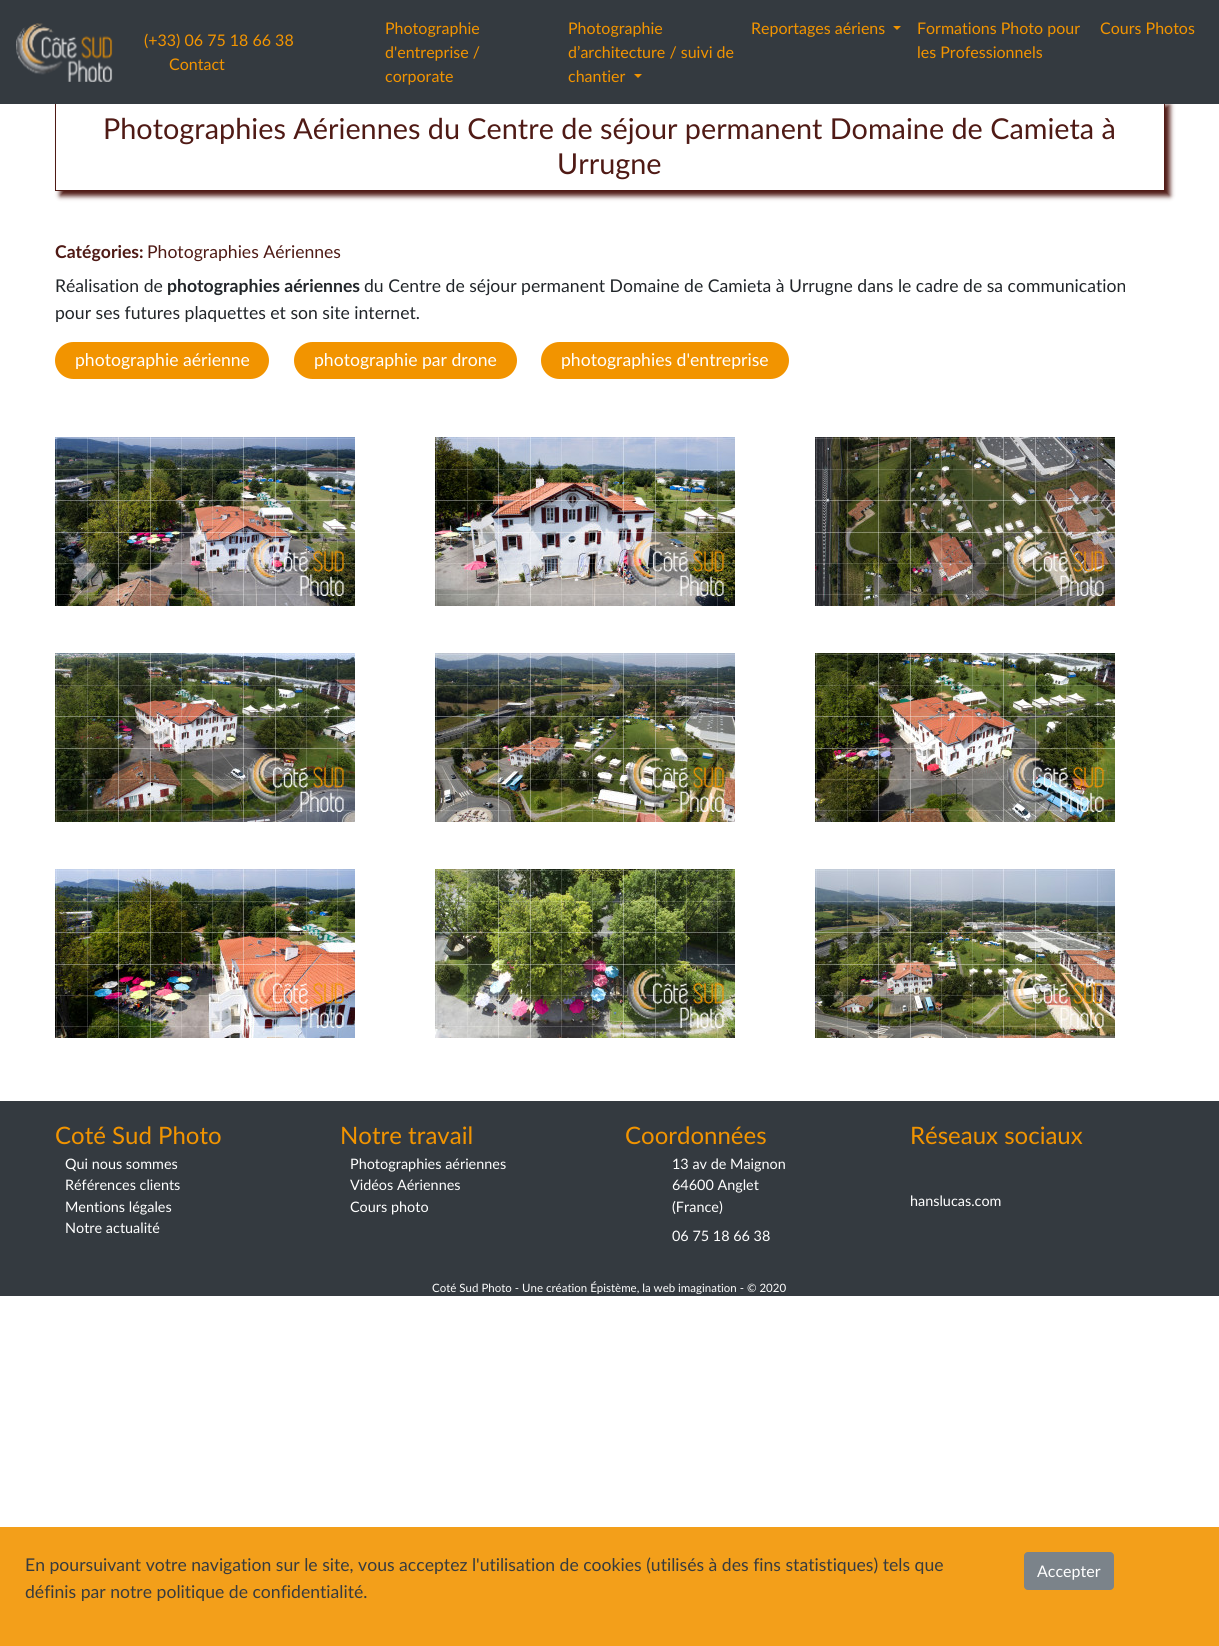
#include <cairo.h>
#include <math.h>
#include <stddef.h>

typedef struct { const char *family; double size; int italic, bold; unsigned color; } style_t;
static cairo_t *ctx;

static void ink(unsigned color) {
    cairo_set_source_rgb(ctx, (color >> 16) / 255.0, (color >> 8 & 255) / 255.0, (color & 255) / 255.0);
}

static void write(double x, double y, const char *s, const style_t *st) {
    cairo_select_font_face(ctx, st->family, st->italic ? CAIRO_FONT_SLANT_ITALIC : CAIRO_FONT_SLANT_NORMAL,
        st->bold ? CAIRO_FONT_WEIGHT_BOLD : CAIRO_FONT_WEIGHT_NORMAL);
    cairo_set_font_size(ctx, st->size);
    ink(st->color);
    cairo_move_to(ctx, x, y);
    cairo_show_text(ctx, s);
}

static void block(double x, double y, double w, double h, unsigned color) {
    ink(color);
    cairo_rectangle(ctx, x, y, w, h);
    cairo_fill(ctx);
}

static void round_path(double x, double y, double w, double h, double r) {
    cairo_new_sub_path(ctx);
    cairo_arc(ctx, x + w - r, y + h - r, r, 0, M_PI / 2);
    cairo_arc(ctx, x + r, y + h - r, r, M_PI / 2, M_PI);
    cairo_arc(ctx, x + r, y + r, r, M_PI, 1.5 * M_PI);
    cairo_arc(ctx, x + w - r, y + r, r, 1.5 * M_PI, 2 * M_PI);
    cairo_close_path(ctx);
}

static void blur_box(double x, double y, double w, double h, double r, double blur, double alpha) {
    cairo_push_group_with_content(ctx, CAIRO_CONTENT_ALPHA);
    cairo_set_operator(ctx, CAIRO_OPERATOR_SOURCE);
    for (int i = 15; i >= -15 && fmin(w, h) + blur * i / 3 > 0; i -= 2) {
        double e = blur * i / 6;
        cairo_set_source_rgba(ctx, 0, 0, 0, alpha * erfc((i - 1) / 8.5) / 2);
        round_path(x - e, y - e, w + 2 * e, h + 2 * e, fmax(0, fmin(r + e + blur * .6, fmin(w, h) / 2 + e)));
        cairo_fill(ctx);
    }
    cairo_pattern_t *soft = cairo_pop_group(ctx);
    cairo_mask(ctx, soft);
    cairo_pattern_destroy(soft);
}

static void paste(const char *path, double x, double y, double w, double h) {
    cairo_surface_t *image = cairo_image_surface_create_from_png(path);
    cairo_save(ctx);
    cairo_set_source_surface(ctx, image, x, y);
    cairo_rectangle(ctx, x, y, w, h);
    cairo_fill(ctx);
    cairo_restore(ctx);
    cairo_surface_destroy(image);
}

static const style_t s1 = {"Lato", 16, 0, 0, 0xf29400};
static const style_t s2 = {"Lato", 28.8, 0, 0, 0x4f1a15};
static const style_t s3 = {"Lato", 17.6, 0, 1, 0x4f1a15};
static const style_t s4 = {"Lato", 17.6, 0, 0, 0x4f1a15};
static const style_t s5 = {"Lato", 17.6, 0, 0, 0x212529};
static const style_t s6 = {"Lato", 17.6, 0, 1, 0x212529};
static const style_t s7 = {"Lato", 17.6, 0, 0, 0xffffff};
static const style_t s8 = {"Lato", 24, 0, 0, 0xf29400};
static const style_t s9 = {"Lato", 14.4, 0, 0, 0xffffff};
static const style_t s10 = {"Lato", 11.5, 0, 0, 0xffffff};
static const style_t s11 = {"Lato", 17.6, 0, 0, 0x373b3e};
static const style_t s12 = {"Lato", 16, 0, 0, 0xffffff};

int main(void) {
    cairo_surface_t *surface = cairo_image_surface_create(CAIRO_FORMAT_RGB24, 1219, 1646);
    ctx = cairo_create(surface);
    cairo_font_options_t *options = cairo_font_options_create();
    cairo_font_options_set_hint_metrics(options, CAIRO_HINT_METRICS_OFF);
    cairo_font_options_set_hint_style(options, CAIRO_HINT_STYLE_NONE);
    cairo_set_font_options(ctx, options);
    cairo_set_miter_limit(ctx, 4);
    ink(0xffffff);
    cairo_paint(ctx);
    cairo_save(ctx);
    cairo_set_fill_rule(ctx, CAIRO_FILL_RULE_EVEN_ODD);
    cairo_new_path(ctx);
    cairo_move_to(ctx, 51, 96);
    cairo_line_to(ctx, 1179, 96);
    cairo_line_to(ctx, 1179, 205);
    cairo_line_to(ctx, 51, 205);
    cairo_close_path(ctx);
    cairo_move_to(ctx, 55, 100);
    cairo_line_to(ctx, 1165, 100);
    cairo_line_to(ctx, 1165, 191);
    cairo_line_to(ctx, 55, 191);
    cairo_close_path(ctx);
    cairo_clip(ctx);
    ink(0x4f1a15);
    blur_box(60, 105, 1110, 91, 0, 2.5, 1);
    cairo_restore(ctx);
    cairo_rectangle(ctx, 55.5, 100.5, 1109, 90);
    ink(0x4f1a15);
    cairo_set_line_width(ctx, 1);
    cairo_stroke(ctx);
    block(0, 0, 1219, 104, 0x343a40);
    paste("pic1.png", 16, 23, 97, 59);
    write(144, 46, "(+33) 06 75 18 66 38", &s1);
    write(169, 70, "Contact", &s1);
    write(385, 34, "Photographie", &s1);
    write(385, 58, "d'entreprise /", &s1);
    write(385, 82, "corporate", &s1);
    write(568, 34, "Photographie", &s1);
    write(568, 58, "d’architecture / suivi de", &s1);
    write(568, 82, "chantier", &s1);
    cairo_new_path(ctx);
    cairo_move_to(ctx, 634, 74);
    cairo_line_to(ctx, 642, 74);
    cairo_line_to(ctx, 638, 78);
    cairo_close_path(ctx);
    cairo_fill(ctx);
    write(751, 34, "Reportages aériens", &s1);
    cairo_new_path(ctx);
    cairo_move_to(ctx, 893, 26);
    cairo_line_to(ctx, 901, 26);
    cairo_line_to(ctx, 897, 30);
    cairo_close_path(ctx);
    cairo_fill(ctx);
    write(917, 34, "Formations Photo pour", &s1);
    write(917, 58, "les Professionnels", &s1);
    write(1100, 34, "Cours Photos", &s1);
    write(103, 139, "Photographies Aériennes du Centre de séjour permanent Domaine de Camieta à", &s2);
    write(557, 174, "Urrugne", &s2);
    write(55, 258, "Catégories:", &s3);
    write(147, 258, "Photographies Aériennes", &s4);
    write(55, 292, "Réalisation de", &s5);
    write(167, 292, "photographies aériennes", &s6);
    write(364, 292, "du Centre de séjour permanent Domaine de Camieta à Urrugne dans le cadre de sa communication", &s5);
    write(55, 319, "pour ses futures plaquettes et son site internet.", &s5);
    ink(0xf29400);
    round_path(55, 342, 214, 37, 18.5);
    cairo_fill(ctx);
    write(75, 366, "photographie aérienne", &s7);
    ink(0xf29400);
    round_path(294, 342, 223, 37, 18.5);
    cairo_fill(ctx);
    write(314, 366, "photographie par drone", &s7);
    ink(0xf29400);
    round_path(541, 342, 248, 37, 18.5);
    cairo_fill(ctx);
    write(561, 366, "photographies d'entreprise", &s7);
    paste("pic2.png", 55, 437, 300, 169);
    paste("pic3.png", 435, 437, 300, 169);
    paste("pic4.png", 815, 437, 300, 169);
    paste("pic5.png", 55, 653, 300, 169);
    paste("pic6.png", 435, 653, 300, 169);
    paste("pic7.png", 815, 653, 300, 169);
    paste("pic8.png", 55, 869, 300, 169);
    paste("pic9.png", 435, 869, 300, 169);
    paste("pic10.png", 815, 869, 300, 169);
    block(0, 1101, 1219, 195, 0x343a40);
    write(55, 1144, "Coté Sud Photo", &s8);
    write(65, 1169, "Qui nous sommes", &s9);
    write(65, 1190, "Références clients", &s9);
    write(65, 1212, "Mentions légales", &s9);
    write(65, 1233, "Notre actualité", &s9);
    write(340, 1144, "Notre travail", &s8);
    write(350, 1169, "Photographies aériennes", &s9);
    write(350, 1190, "Vidéos Aériennes", &s9);
    write(350, 1212, "Cours photo", &s9);
    write(625, 1144, "Coordonnées", &s8);
    write(672, 1169, "13 av de Maignon", &s9);
    write(672, 1190, "64600 Anglet", &s9);
    write(672, 1212, "(France)", &s9);
    write(672, 1241, "06 75 18 66 38", &s9);
    write(910, 1144, "Réseaux sociaux", &s8);
    write(910, 1206, "hanslucas.com", &s9);
    write(432, 1292, "Coté Sud Photo - Une création Épistème, la web imagination - © 2020", &s10);
    block(0, 1527, 1219, 119, 0xf39f1a);
    write(25, 1571, "En poursuivant votre navigation sur le site, vous acceptez l'utilisation de cookies (utilisés à des fins statistiques) tels que", &s11);
    write(25, 1598, "définis par notre politique de confidentialité.", &s11);
    ink(0x7b838a);
    round_path(1024.5, 1552.5, 89, 37, 3.5);
    cairo_fill_preserve(ctx);
    cairo_stroke(ctx);
    write(1037, 1577, "Accepter", &s12);
    cairo_surface_write_to_png(surface, "screenshot.png");
    cairo_font_options_destroy(options);
    cairo_destroy(ctx);
    cairo_surface_destroy(surface);
    return 0;
}
